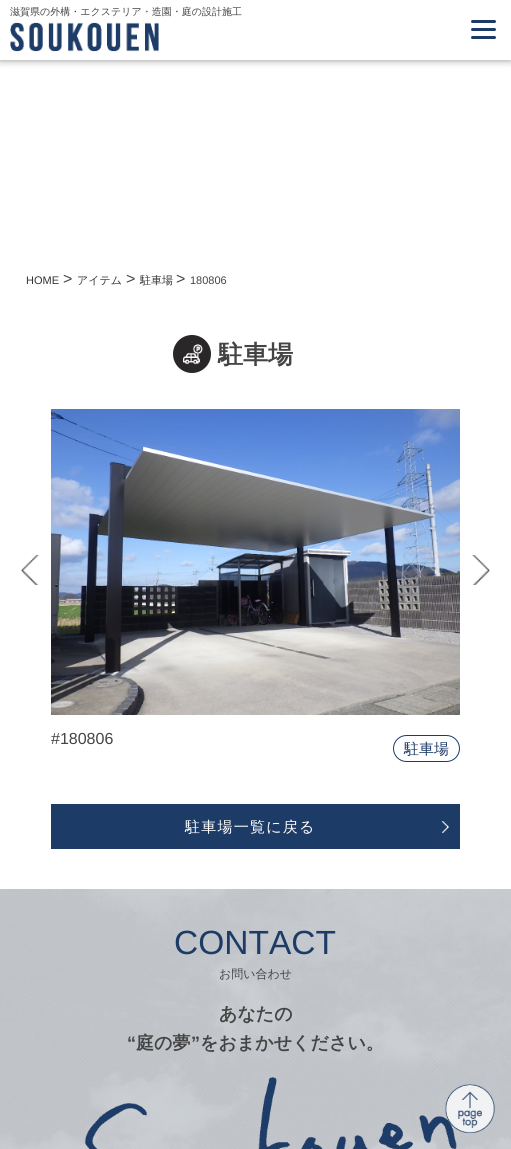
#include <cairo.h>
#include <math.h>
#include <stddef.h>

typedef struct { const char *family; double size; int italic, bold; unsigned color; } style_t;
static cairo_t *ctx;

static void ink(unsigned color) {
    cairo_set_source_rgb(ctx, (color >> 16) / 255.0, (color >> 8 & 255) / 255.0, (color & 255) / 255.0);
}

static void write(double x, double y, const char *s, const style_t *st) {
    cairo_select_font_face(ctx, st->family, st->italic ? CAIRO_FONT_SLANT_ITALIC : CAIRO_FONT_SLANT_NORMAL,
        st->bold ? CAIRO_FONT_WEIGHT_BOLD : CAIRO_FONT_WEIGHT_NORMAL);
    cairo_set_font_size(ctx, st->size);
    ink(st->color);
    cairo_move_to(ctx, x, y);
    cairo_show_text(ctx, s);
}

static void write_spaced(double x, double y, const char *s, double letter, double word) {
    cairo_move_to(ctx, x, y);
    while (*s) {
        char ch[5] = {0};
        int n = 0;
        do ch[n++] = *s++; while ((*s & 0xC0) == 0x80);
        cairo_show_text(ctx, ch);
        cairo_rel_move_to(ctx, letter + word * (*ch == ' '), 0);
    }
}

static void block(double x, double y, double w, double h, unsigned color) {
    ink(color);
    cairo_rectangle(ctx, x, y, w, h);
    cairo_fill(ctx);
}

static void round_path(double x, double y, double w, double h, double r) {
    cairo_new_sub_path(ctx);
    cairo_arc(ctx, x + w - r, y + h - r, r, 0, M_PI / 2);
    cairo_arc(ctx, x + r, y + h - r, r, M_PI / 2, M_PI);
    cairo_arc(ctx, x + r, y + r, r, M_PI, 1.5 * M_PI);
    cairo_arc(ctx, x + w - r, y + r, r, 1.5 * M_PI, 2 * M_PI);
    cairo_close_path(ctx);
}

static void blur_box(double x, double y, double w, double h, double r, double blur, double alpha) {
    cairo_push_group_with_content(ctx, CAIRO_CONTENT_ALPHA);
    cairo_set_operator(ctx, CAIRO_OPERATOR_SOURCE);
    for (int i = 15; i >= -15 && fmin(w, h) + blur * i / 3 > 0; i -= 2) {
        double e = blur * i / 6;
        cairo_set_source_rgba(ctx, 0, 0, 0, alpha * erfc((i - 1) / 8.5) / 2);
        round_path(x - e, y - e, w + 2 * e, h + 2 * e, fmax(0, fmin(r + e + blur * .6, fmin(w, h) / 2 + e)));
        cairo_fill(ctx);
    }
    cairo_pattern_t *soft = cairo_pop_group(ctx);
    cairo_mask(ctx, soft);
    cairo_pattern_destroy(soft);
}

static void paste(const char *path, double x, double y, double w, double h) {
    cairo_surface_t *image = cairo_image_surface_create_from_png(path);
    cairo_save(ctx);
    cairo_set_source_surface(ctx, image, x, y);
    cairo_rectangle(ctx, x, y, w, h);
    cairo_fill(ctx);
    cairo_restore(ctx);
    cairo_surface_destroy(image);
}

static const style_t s1 = {"WenQuanYi Zen Hei Medium", 10, 0, 0, 0x444444};
static const style_t s2 = {"Liberation Sans", 11, 0, 0, 0x333333};
static const style_t s3 = {"Liberation Sans", 16, 0, 0, 0x444444};
static const style_t s4 = {"WenQuanYi Zen Hei Medium", 11, 0, 0, 0x333333};
static const style_t s5 = {"Liberation Sans", 11, 0, 0, 0x444444};
static const style_t s6 = {"WenQuanYi Zen Hei", 25, 0, 1, 0x444444};
static const style_t s7 = {"WenQuanYi Zen Hei Medium", 15, 0, 0, 0x1d3b67};
static const style_t s8 = {"Liberation Sans", 33.5, 0, 0, 0x1d3b67};
static const style_t s9 = {"WenQuanYi Zen Hei Medium", 12, 0, 0, 0x444444};
static const style_t s10 = {"WenQuanYi Zen Hei", 18, 0, 1, 0x444444};
static const style_t s11 = {"Liberation Sans", 18, 0, 1, 0x444444};

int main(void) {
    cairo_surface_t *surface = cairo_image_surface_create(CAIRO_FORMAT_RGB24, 511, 1149);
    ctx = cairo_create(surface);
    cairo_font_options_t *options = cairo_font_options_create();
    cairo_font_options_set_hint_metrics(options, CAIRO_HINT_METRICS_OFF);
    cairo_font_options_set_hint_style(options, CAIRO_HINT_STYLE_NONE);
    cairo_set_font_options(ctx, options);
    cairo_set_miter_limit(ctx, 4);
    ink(0xffffff);
    cairo_paint(ctx);
    cairo_save(ctx);
    cairo_rectangle(ctx, 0, 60, 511, 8);
    cairo_clip(ctx);
    ink(0x8e8e8e);
    blur_box(0, 0, 511, 60, 0, 4, 1);
    cairo_restore(ctx);
    write(10, 15, "滋賀県の外構・エクステリア・造園・庭の設計施工", &s1);
    paste("pic1.png", 10, 22, 149, 30);
    ink(0x1d3b67);
    round_path(471, 20, 25, 3, 1.5);
    cairo_fill(ctx);
    round_path(471, 28, 25, 3, 1.5);
    cairo_fill(ctx);
    round_path(471, 36, 25, 3, 1.5);
    cairo_fill(ctx);
    write(26, 284, "HOME", &s2);
    write(63, 284, ">", &s3);
    write(77, 284, "アイテム", &s4);
    write(126, 284, ">", &s3);
    write(140, 284, "駐車場", &s4);
    write(176, 284, ">", &s3);
    write(190, 284, "180806", &s5);
    ink(0x292728);
    cairo_new_path(ctx);
    cairo_arc(ctx, 192, 354, 19, 0, 2 * M_PI);
    cairo_fill(ctx);
    paste("pic2.png", 183, 344, 20, 21);
    write(218, 363, "駐車場", &s6);
    paste("pic3.png", 51, 409, 409, 306);
    paste("pic4.png", 21, 555, 18, 30);
    paste("pic5.png", 472, 555, 18, 30);
    write(51, 744, "#180806", &s3);
    round_path(393.5, 735.5, 66, 26, 13);
    ink(0x1d3b67);
    cairo_set_line_width(ctx, 1);
    cairo_stroke(ctx);
    write(404, 754, "駐車場", &s7);
    block(51, 804, 409, 45, 0x1d3b67);
    ink(0xffffff);
    write_spaced(185, 832, "駐車場一覧に戻る", 1.25, 0);
    paste("pic6.png", 442, 821, 7, 12);
    paste("pic7.png", 0, 889, 511, 260);
    write(174, 954, "CONTACT", &s8);
    write(219, 978, "お問い合わせ", &s9);
    write(219, 1020, "あなたの", &s10);
    write(127, 1049, "“", &s11);
    write(136, 1049, "庭の夢", &s10);
    write(191, 1049, "”", &s11);
    write(200, 1049, "をおまかせください。", &s10);
    paste("pic8.png", 85, 1077, 372, 72);
    paste("pic9.png", 445, 1084, 50, 49);
    cairo_surface_write_to_png(surface, "screenshot.png");
    cairo_font_options_destroy(options);
    cairo_destroy(ctx);
    cairo_surface_destroy(surface);
    return 0;
}
